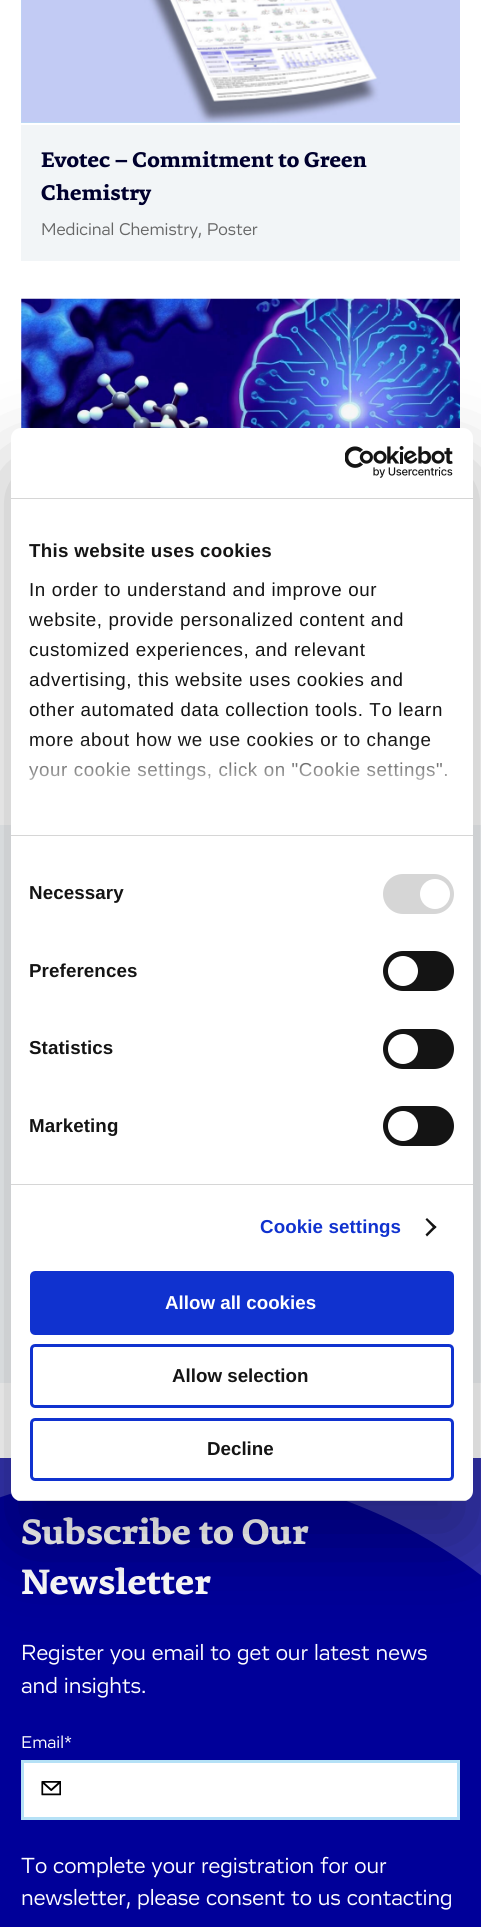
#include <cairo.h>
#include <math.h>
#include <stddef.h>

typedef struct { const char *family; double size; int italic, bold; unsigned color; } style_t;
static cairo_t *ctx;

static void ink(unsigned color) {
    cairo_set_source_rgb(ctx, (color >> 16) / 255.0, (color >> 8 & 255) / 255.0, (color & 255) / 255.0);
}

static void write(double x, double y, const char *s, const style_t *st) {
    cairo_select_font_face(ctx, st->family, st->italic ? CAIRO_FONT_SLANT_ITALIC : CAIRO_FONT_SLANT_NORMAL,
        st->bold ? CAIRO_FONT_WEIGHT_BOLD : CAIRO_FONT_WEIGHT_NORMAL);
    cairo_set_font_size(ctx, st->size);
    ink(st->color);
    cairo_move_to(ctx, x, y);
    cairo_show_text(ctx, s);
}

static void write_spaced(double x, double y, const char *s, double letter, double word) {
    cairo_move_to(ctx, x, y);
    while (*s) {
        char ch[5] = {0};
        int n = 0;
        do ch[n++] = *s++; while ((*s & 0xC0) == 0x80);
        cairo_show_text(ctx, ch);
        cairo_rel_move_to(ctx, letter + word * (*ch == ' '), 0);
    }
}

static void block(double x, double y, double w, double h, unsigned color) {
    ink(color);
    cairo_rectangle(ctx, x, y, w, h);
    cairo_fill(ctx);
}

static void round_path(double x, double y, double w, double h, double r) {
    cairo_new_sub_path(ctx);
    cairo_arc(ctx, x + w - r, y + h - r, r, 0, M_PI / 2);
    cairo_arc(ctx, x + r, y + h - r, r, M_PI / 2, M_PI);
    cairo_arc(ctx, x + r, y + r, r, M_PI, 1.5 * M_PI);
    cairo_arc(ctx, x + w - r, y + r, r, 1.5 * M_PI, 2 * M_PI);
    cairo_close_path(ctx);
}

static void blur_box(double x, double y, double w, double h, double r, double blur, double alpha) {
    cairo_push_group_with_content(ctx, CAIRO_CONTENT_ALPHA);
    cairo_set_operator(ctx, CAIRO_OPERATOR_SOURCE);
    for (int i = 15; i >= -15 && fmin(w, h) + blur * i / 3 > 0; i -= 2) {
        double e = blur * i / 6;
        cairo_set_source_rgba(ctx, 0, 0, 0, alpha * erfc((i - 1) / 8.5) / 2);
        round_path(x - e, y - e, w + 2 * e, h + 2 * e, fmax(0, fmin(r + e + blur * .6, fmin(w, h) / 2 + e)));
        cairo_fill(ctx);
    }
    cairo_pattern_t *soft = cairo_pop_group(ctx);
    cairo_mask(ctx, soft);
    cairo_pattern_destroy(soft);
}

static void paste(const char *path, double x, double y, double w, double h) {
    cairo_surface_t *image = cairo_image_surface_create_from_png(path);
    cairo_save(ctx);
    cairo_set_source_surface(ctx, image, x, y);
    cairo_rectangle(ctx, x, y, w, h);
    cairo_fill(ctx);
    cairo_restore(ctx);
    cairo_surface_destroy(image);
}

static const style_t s1 = {"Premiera", 22.5, 0, 1, 0x00002e};
static const style_t s2 = {"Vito", 17.5, 0, 0, 0x666666};
static const style_t s3 = {"Premiera", 37.5, 0, 1, 0xffffff};
static const style_t s4 = {"Vito", 22.5, 0, 0, 0xffffff};
static const style_t s5 = {"Vito", 17.5, 0, 0, 0xffffff};
static const style_t s6 = {"Liberation Sans", 18.75, 0, 1, 0xffffff};
static const style_t s7 = {"Liberation Sans", 18.75, 0, 1, 0x141414};

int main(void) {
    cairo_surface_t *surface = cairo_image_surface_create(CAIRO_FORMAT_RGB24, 481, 1927);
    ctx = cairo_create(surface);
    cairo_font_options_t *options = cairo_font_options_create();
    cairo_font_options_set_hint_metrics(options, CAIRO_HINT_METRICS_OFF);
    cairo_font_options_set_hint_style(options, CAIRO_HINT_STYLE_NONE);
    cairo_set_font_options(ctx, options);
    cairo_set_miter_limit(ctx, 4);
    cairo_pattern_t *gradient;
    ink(0xffffff);
    cairo_paint(ctx);
    block(21, 0, 439, 123, 0xb5e1f6);
    paste("pic1.png", 21, 0, 439, 123);
    block(21, 125, 439, 136, 0xf2f5f7);
    write(41, 167, "Evotec – Commitment to Green", &s1);
    write(41, 200, "Chemistry", &s1);
    write(41, 235, "Medicinal Chemistry, Poster", &s2);
    paste("pic2.png", 21, 298, 439, 130);
    block(0, 825, 481, 558, 0xf2f5f7);
    block(0, 1458, 481, 118, 0x3333ad);
    paste("pic3.png", 0, 1493, 481, 434);
    write(21, 1544, "Subscribe to Our", &s3);
    write(21, 1594, "Newsletter", &s3);
    write(21, 1660, "Register you email to get our latest news", &s4);
    write(21, 1693, "and insights.", &s4);
    write(21, 1748, "Email*", &s5);
    cairo_rectangle(ctx, 22.5, 1761.5, 436, 57);
    cairo_fill_preserve(ctx);
    ink(0xb5e1f6);
    cairo_set_line_width(ctx, 3);
    cairo_stroke(ctx);
    paste("pic4.png", 41, 1781, 20, 15);
    write(21, 1873, "To complete your registration for our", &s4);
    write(21, 1905, "newsletter, please consent to us contacting", &s4);
    ink(0x000000);
    blur_box(11, 468, 462, 1073, 10, 42.5, 0.3);
    ink(0xffffff);
    round_path(11, 428, 462, 1073, 10);
    cairo_fill(ctx);
    block(11, 498, 462, 1, 0xd6d6d6);
    paste("pic5.png", 345, 446, 108, 32);
    block(11, 835, 462, 1, 0xd6d6d6);
    cairo_select_font_face(ctx, "Liberation Sans", CAIRO_FONT_SLANT_NORMAL, CAIRO_FONT_WEIGHT_BOLD);
    cairo_set_font_size(ctx, 18.75);
    ink(0x141414);
    write_spaced(29, 557, "This website uses cookies", 0.3, 0);
    cairo_select_font_face(ctx, "Liberation Sans", CAIRO_FONT_SLANT_NORMAL, CAIRO_FONT_WEIGHT_NORMAL);
    write_spaced(29, 596, "In order to understand and improve our", 0.6, 0);
    write_spaced(29, 626, "website, provide personalized content and", 0.6, 0);
    write_spaced(29, 656, "customized experiences, and relevant", 0.6, 0);
    write_spaced(29, 686, "advertising, this website uses cookies and", 0.6, 0);
    write_spaced(29, 716, "other automated data collection tools. To learn", 0.6, 0);
    write_spaced(29, 746, "more about how we use cookies or to change", 0.6, 0);
    write_spaced(29, 776, "your cookie settings, click on \"Cookie settings\".", 0.6, 0);
    gradient = cairo_pattern_create_linear(233, 835, 233, 741);
    cairo_pattern_add_color_stop_rgba(gradient, 0, 1, 1, 1, 1);
    cairo_pattern_add_color_stop_rgba(gradient, 0.5, 1, 1, 1, 0.8);
    cairo_pattern_add_color_stop_rgba(gradient, 1, 1, 1, 1, 0);
    cairo_set_source(ctx, gradient);
    cairo_pattern_destroy(gradient);
    cairo_rectangle(ctx, 28, 742, 420, 38);
    cairo_fill(ctx);
    block(11, 1184, 462, 1, 0xd6d6d6);
    cairo_select_font_face(ctx, "Liberation Sans", CAIRO_FONT_SLANT_NORMAL, CAIRO_FONT_WEIGHT_BOLD);
    ink(0x141414);
    write_spaced(29, 899, "Necessary", 0.1, 0);
    ink(0xd6d6d6);
    round_path(383, 874, 71, 40, 20);
    cairo_fill(ctx);
    ink(0xffffff);
    cairo_arc(ctx, 435, 894, 15, 0, 2 * M_PI);
    cairo_fill(ctx);
    ink(0x141414);
    write_spaced(29, 977, "Preferences", 0.1, 0);
    round_path(383, 951, 71, 40, 20);
    cairo_fill(ctx);
    ink(0xffffff);
    cairo_arc(ctx, 403, 971, 15, 0, 2 * M_PI);
    cairo_fill(ctx);
    ink(0x141414);
    write_spaced(29, 1054, "Statistics", 0.1, 0);
    round_path(383, 1029, 71, 40, 20);
    cairo_fill(ctx);
    ink(0xffffff);
    cairo_arc(ctx, 403, 1049, 15, 0, 2 * M_PI);
    cairo_fill(ctx);
    ink(0x141414);
    write_spaced(29, 1132, "Marketing", 0.1, 0);
    round_path(383, 1106, 71, 40, 20);
    cairo_fill(ctx);
    ink(0xffffff);
    cairo_arc(ctx, 403, 1126, 15, 0, 2 * M_PI);
    cairo_fill(ctx);
    ink(0x1032cf);
    write_spaced(260, 1233, "Cookie settings", 0.1, 0);
    ink(0x141414);
    cairo_new_path(ctx);
    cairo_move_to(ctx, 427, 1218);
    cairo_line_to(ctx, 436.5, 1227);
    cairo_line_to(ctx, 434.5, 1229);
    cairo_line_to(ctx, 425.5, 1219.5);
    cairo_close_path(ctx);
    cairo_fill(ctx);
    cairo_new_path(ctx);
    cairo_move_to(ctx, 434.5, 1225.5);
    cairo_line_to(ctx, 436.5, 1227);
    cairo_line_to(ctx, 427, 1236.5);
    cairo_line_to(ctx, 425.5, 1234.5);
    cairo_close_path(ctx);
    cairo_fill(ctx);
    cairo_save(ctx);
    round_path(11, 428, 462, 1073, 10);
    cairo_clip(ctx);
    block(11, 1500, 462, 1, 0xd6d6d6);
    cairo_restore(ctx);
    ink(0x1032cf);
    round_path(31.5, 1272.5, 421, 61, 3.5);
    cairo_fill_preserve(ctx);
    cairo_stroke(ctx);
    write(165, 1309, "Allow all cookies", &s6);
    round_path(31.5, 1345.5, 421, 61, 3.5);
    ink(0x1032cf);
    cairo_stroke(ctx);
    write(172, 1382, "Allow selection", &s7);
    round_path(31.5, 1419.5, 421, 60, 3.5);
    ink(0x1032cf);
    cairo_stroke(ctx);
    write(207, 1455, "Decline", &s7);
    cairo_surface_write_to_png(surface, "screenshot.png");
    cairo_font_options_destroy(options);
    cairo_destroy(ctx);
    cairo_surface_destroy(surface);
    return 0;
}
